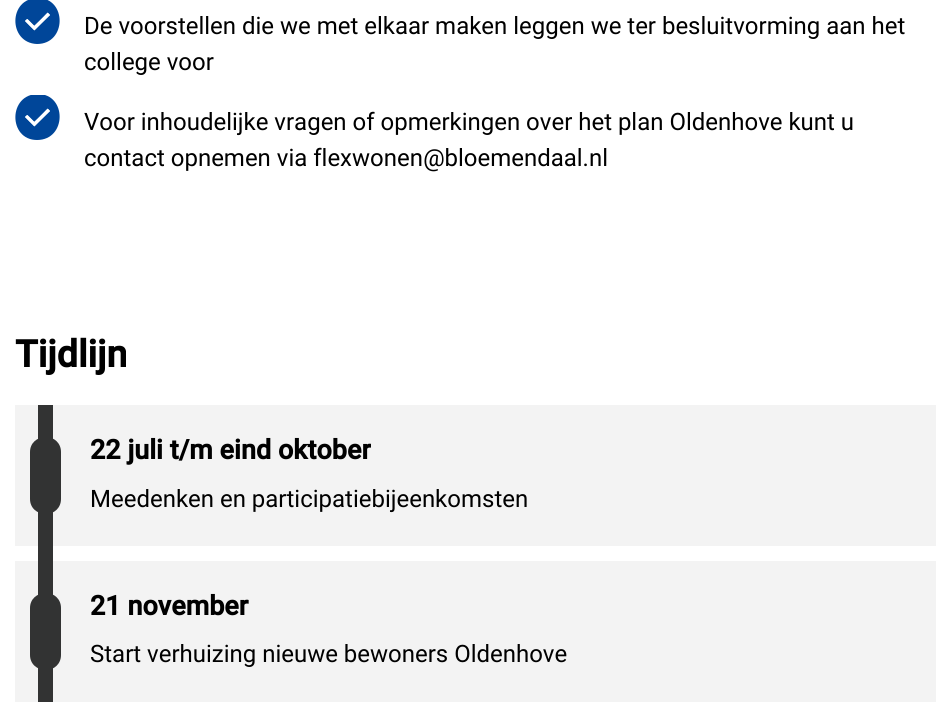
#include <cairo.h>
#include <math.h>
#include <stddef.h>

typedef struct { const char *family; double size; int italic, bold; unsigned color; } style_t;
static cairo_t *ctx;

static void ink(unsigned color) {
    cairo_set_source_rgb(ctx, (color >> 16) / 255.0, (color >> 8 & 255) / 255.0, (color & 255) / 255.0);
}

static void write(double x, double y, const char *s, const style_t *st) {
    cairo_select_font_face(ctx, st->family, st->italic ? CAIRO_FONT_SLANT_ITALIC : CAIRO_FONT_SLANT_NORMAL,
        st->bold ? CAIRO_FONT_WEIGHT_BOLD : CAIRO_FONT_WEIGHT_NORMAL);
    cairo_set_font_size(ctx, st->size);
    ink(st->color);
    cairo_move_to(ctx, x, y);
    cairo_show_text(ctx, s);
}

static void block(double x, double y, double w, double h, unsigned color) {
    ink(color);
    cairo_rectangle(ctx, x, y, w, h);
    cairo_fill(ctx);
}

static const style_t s1 = {"Roboto", 24, 0, 0, 0x000000};
static const style_t s2 = {"Roboto", 37.5, 0, 1, 0x000000};
static const style_t s3 = {"Roboto", 27, 0, 1, 0x000000};

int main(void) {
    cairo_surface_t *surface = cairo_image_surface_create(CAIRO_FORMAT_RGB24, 950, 712);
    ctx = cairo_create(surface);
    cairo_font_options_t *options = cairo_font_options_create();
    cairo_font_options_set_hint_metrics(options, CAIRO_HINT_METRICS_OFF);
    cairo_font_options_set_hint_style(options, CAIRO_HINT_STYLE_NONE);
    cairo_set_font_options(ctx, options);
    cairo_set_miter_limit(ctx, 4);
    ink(0xffffff);
    cairo_paint(ctx);
    ink(0x004699);
    cairo_new_path(ctx);
    cairo_move_to(ctx, 38, -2);
    cairo_curve_to(ctx, 8, -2, 8, 43, 37, 44);
    cairo_curve_to(ctx, 67, 44, 67, -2, 38, -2);
    cairo_close_path(ctx);
    cairo_move_to(ctx, 34, 30);
    cairo_line_to(ctx, 25, 21);
    cairo_line_to(ctx, 27, 19);
    cairo_line_to(ctx, 34, 26);
    cairo_line_to(ctx, 48, 13);
    cairo_line_to(ctx, 50, 15);
    cairo_close_path(ctx);
    cairo_fill(ctx);
    ink(0xffffff);
    cairo_new_path(ctx);
    cairo_move_to(ctx, 34.5, 26);
    cairo_line_to(ctx, 27.5, 19);
    cairo_line_to(ctx, 25, 21);
    cairo_line_to(ctx, 34.5, 30.5);
    cairo_line_to(ctx, 50, 15);
    cairo_line_to(ctx, 47.5, 12.5);
    cairo_close_path(ctx);
    cairo_fill(ctx);
    write(84, 34, "De voorstellen die we met elkaar maken leggen we ter besluitvorming aan het", &s1);
    write(84, 70, "college voor", &s1);
    cairo_save(ctx);
    cairo_rectangle(ctx, 15, 95, 45, 45);
    cairo_clip(ctx);
    ink(0x004699);
    cairo_new_path(ctx);
    cairo_move_to(ctx, 38, 94);
    cairo_curve_to(ctx, 8, 94, 8, 140, 37, 140);
    cairo_curve_to(ctx, 67, 140, 67, 94, 38, 94);
    cairo_close_path(ctx);
    cairo_move_to(ctx, 34, 126);
    cairo_line_to(ctx, 25, 117);
    cairo_line_to(ctx, 27, 115);
    cairo_line_to(ctx, 34, 122);
    cairo_line_to(ctx, 48, 109);
    cairo_line_to(ctx, 50, 111);
    cairo_close_path(ctx);
    cairo_fill(ctx);
    cairo_restore(ctx);
    ink(0xffffff);
    cairo_new_path(ctx);
    cairo_move_to(ctx, 34.5, 122);
    cairo_line_to(ctx, 27.5, 115);
    cairo_line_to(ctx, 25, 117);
    cairo_line_to(ctx, 34.5, 126.5);
    cairo_line_to(ctx, 50, 111);
    cairo_line_to(ctx, 47.5, 108.5);
    cairo_close_path(ctx);
    cairo_fill(ctx);
    write(84, 130, "Voor inhoudelijke vragen of opmerkingen over het plan Oldenhove kunt u", &s1);
    write(84, 166, "contact opnemen via flexwonen@bloemendaal.nl", &s1);
    write(15, 367, "Tijdlijn", &s2);
    block(15, 405, 921, 141, 0xf3f3f3);
    block(38, 405, 15, 141, 0x323333);
    cairo_new_path(ctx);
    cairo_move_to(ctx, 46, 437);
    cairo_curve_to(ctx, 37, 437, 30, 443, 30, 452);
    cairo_line_to(ctx, 30, 499);
    cairo_curve_to(ctx, 30, 508, 37, 514, 46, 514);
    cairo_curve_to(ctx, 54, 514, 61, 508, 61, 499);
    cairo_line_to(ctx, 61, 452);
    cairo_curve_to(ctx, 61, 443, 54, 437, 46, 437);
    cairo_close_path(ctx);
    cairo_fill(ctx);
    write(90, 459, "22 juli t/m eind oktober", &s3);
    write(90, 507, "Meedenken en participatiebijeenkomsten", &s1);
    block(15, 561, 921, 141, 0xf3f3f3);
    block(38, 546, 15, 156, 0x323333);
    cairo_new_path(ctx);
    cairo_move_to(ctx, 46, 593);
    cairo_curve_to(ctx, 37, 593, 30, 599, 30, 608);
    cairo_line_to(ctx, 30, 655);
    cairo_curve_to(ctx, 30, 664, 37, 670, 46, 670);
    cairo_curve_to(ctx, 54, 670, 61, 664, 61, 655);
    cairo_line_to(ctx, 61, 608);
    cairo_curve_to(ctx, 61, 599, 54, 593, 46, 593);
    cairo_close_path(ctx);
    cairo_fill(ctx);
    write(90, 615, "21 november", &s3);
    write(90, 662, "Start verhuizing nieuwe bewoners Oldenhove", &s1);
    cairo_surface_write_to_png(surface, "screenshot.png");
    cairo_font_options_destroy(options);
    cairo_destroy(ctx);
    cairo_surface_destroy(surface);
    return 0;
}
